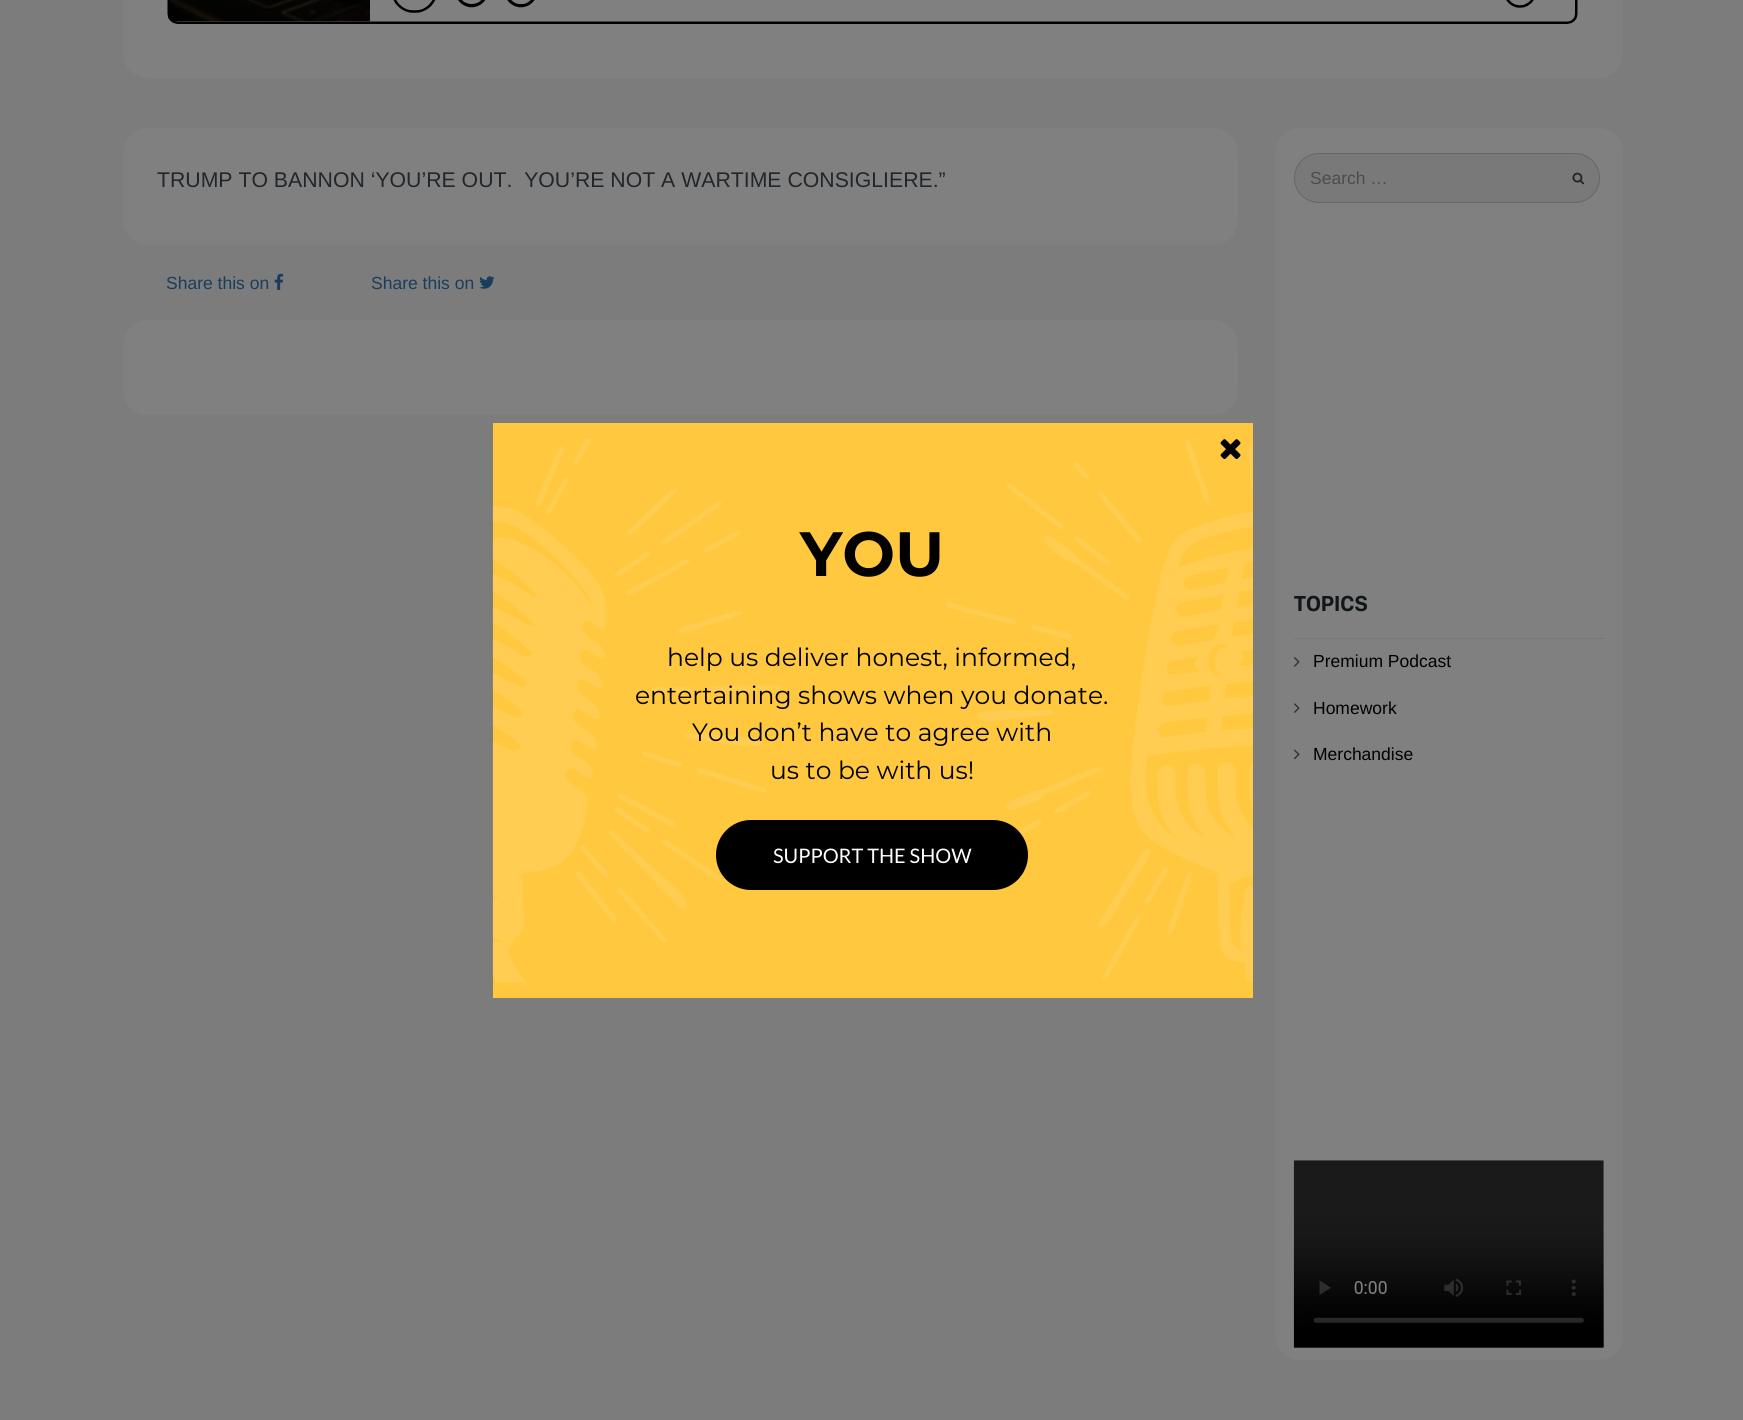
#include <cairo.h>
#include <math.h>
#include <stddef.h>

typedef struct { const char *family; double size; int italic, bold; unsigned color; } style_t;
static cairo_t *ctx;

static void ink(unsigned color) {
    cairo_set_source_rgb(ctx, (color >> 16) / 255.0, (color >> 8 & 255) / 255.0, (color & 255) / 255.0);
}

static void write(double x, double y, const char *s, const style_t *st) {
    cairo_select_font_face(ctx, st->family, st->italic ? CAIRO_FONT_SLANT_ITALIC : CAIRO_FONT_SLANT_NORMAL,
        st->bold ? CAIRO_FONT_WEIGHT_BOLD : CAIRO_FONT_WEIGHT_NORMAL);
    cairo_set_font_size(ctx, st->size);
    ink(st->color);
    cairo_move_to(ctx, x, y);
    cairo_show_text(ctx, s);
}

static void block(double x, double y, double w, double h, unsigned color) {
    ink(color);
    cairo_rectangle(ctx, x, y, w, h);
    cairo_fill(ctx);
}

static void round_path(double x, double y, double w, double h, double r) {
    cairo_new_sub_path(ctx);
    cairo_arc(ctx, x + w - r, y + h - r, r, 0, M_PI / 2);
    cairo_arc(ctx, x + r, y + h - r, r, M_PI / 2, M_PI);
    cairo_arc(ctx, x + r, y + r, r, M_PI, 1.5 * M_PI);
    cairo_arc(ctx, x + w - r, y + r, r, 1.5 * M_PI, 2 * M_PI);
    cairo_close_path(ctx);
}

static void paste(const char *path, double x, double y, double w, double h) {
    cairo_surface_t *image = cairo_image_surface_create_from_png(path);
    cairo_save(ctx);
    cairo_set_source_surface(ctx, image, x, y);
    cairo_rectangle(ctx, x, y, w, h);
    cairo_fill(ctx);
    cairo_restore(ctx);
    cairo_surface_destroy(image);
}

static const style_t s1 = {"Liberation Sans", 21.25, 0, 0, 0x21262b};
static const style_t s2 = {"Liberation Sans", 17.5, 0, 0, 0x1a3d5c};
static const style_t s3 = {"Liberation Sans", 17.5, 0, 0, 0x4d4d4d};
static const style_t s4 = {"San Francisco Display", 22.5, 0, 1, 0x10161a};
static const style_t s5 = {"Liberation Sans", 17.5, 0, 0, 0x000000};
static const style_t s6 = {"Montserrat", 62.5, 0, 1, 0x000000};
static const style_t s7 = {"Montserrat", 25, 0, 0, 0x000000};
static const style_t s8 = {"Lato", 20, 0, 0, 0xffffff};

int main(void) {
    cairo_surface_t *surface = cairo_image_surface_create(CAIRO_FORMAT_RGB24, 1743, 1420);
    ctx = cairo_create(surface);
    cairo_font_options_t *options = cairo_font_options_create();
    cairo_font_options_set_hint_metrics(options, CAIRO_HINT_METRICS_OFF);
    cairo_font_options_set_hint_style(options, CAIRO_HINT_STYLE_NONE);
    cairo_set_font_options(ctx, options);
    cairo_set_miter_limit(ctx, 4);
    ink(0x7c7c7c);
    cairo_paint(ctx);
    ink(0x808080);
    round_path(123, -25, 1500, 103, 25);
    cairo_fill(ctx);
    paste("pic1.png", 167, 0, 1411, 24);
    round_path(123, 128, 1115, 117, 25);
    cairo_fill(ctx);
    write(157, 187, "TRUMP TO BANNON ‘YOU’RE OUT.  YOU’RE NOT A WARTIME CONSIGLIERE.”", &s1);
    write(166, 289, "Share this on", &s2);
    paste("pic2.png", 274, 273, 10, 17);
    write(371, 289, "Share this on", &s2);
    paste("pic3.png", 479, 276, 16, 13);
    ink(0x808080);
    round_path(123, 320, 1115, 95, 25);
    cairo_fill(ctx);
    round_path(1275, 128, 348, 1232, 25);
    cairo_fill(ctx);
    ink(0x797979);
    round_path(1294, 153, 306, 50, 25);
    cairo_fill(ctx);
    round_path(1294.5, 153.5, 305, 49, 24.5);
    cairo_set_source_rgba(ctx, 0.251, 0.251, 0.263, 0.33);
    cairo_set_line_width(ctx, 1);
    cairo_stroke(ctx);
    write(1310, 184, "Search …", &s3);
    paste("pic4.png", 1572, 172, 13, 13);
    block(1294, 638, 310, 1, 0x777777);
    cairo_save(ctx);
    cairo_rectangle(ctx, 1294, 564, 310, 226);
    cairo_clip(ctx);
    write(1294, 611, "TOPICS", &s4);
    cairo_restore(ctx);
    paste("pic5.png", 1294, 657, 6, 10);
    write(1313, 667, "Premium Podcast", &s5);
    paste("pic6.png", 1294, 703, 6, 10);
    write(1313, 714, "Homework", &s5);
    paste("pic7.png", 1294, 749, 6, 11);
    write(1313, 760, "Merchandise", &s5);
    paste("pic8.png", 1293, 1160, 311, 188);
    block(493, 423, 760, 575, 0xffc83e);
    paste("pic9.png", 492, 438, 290, 545);
    paste("pic11.png", 946, 440, 307, 542);
    paste("pic10.png", 1220, 439, 21, 20);
    write(800, 576, "YOU", &s6);
    write(667, 666, "help us deliver honest, informed,", &s7);
    write(635, 704, "entertaining shows when you donate.", &s7);
    write(692, 741, "You don’t have to agree with", &s7);
    write(770, 779, "us to be with us!", &s7);
    round_path(716, 820, 312, 70, 35);
    cairo_fill(ctx);
    write(773, 863, "SUPPORT THE SHOW", &s8);
    cairo_surface_write_to_png(surface, "screenshot.png");
    cairo_font_options_destroy(options);
    cairo_destroy(ctx);
    cairo_surface_destroy(surface);
    return 0;
}
